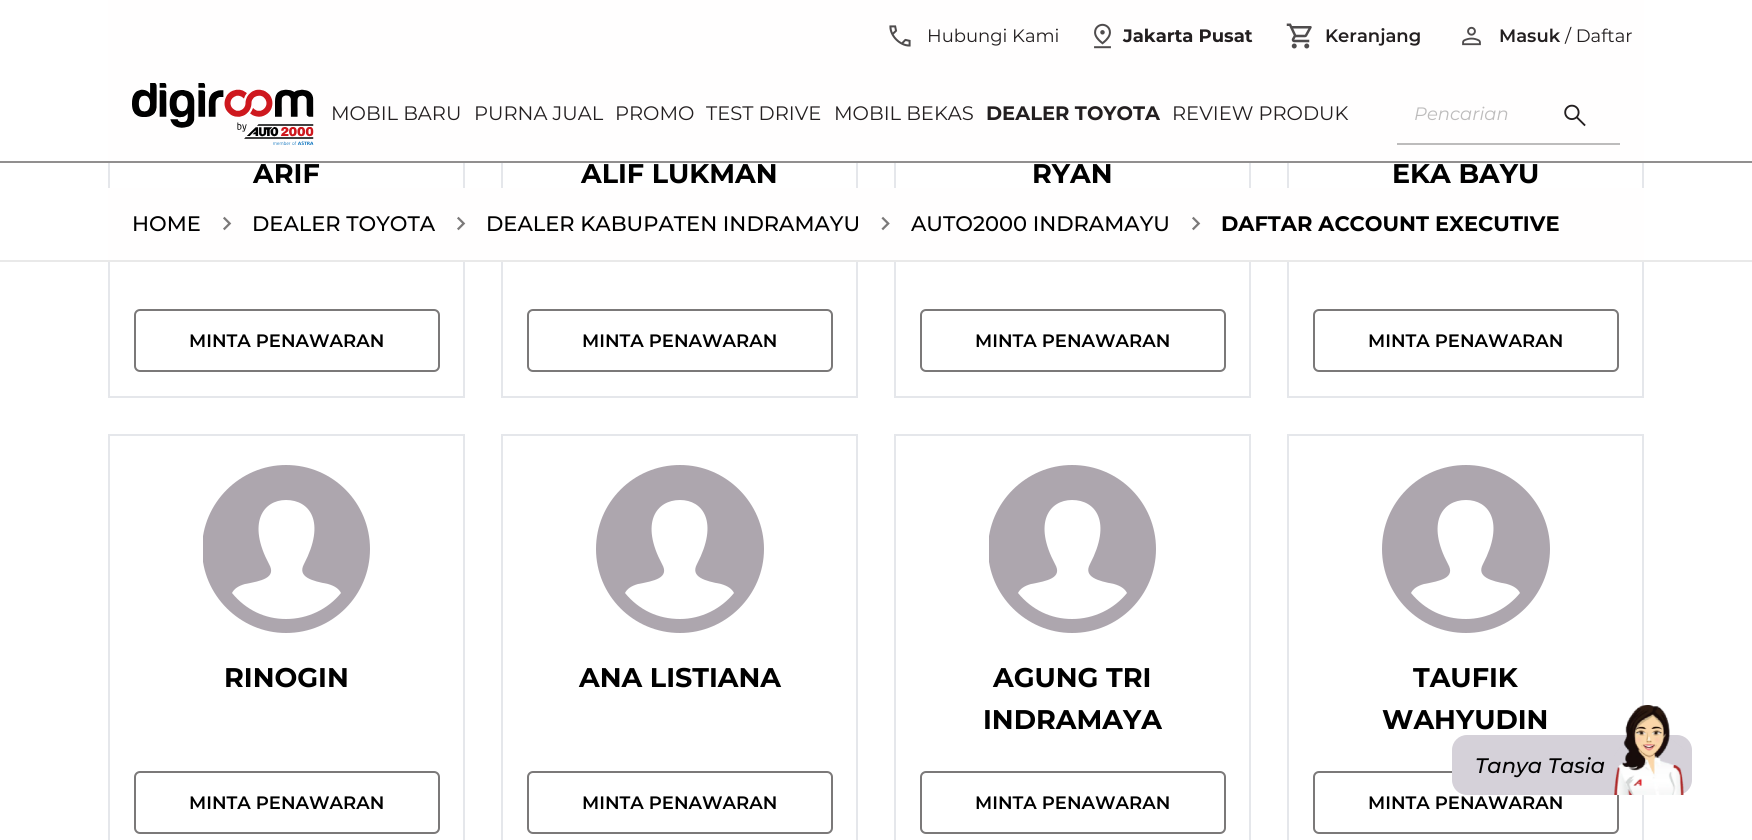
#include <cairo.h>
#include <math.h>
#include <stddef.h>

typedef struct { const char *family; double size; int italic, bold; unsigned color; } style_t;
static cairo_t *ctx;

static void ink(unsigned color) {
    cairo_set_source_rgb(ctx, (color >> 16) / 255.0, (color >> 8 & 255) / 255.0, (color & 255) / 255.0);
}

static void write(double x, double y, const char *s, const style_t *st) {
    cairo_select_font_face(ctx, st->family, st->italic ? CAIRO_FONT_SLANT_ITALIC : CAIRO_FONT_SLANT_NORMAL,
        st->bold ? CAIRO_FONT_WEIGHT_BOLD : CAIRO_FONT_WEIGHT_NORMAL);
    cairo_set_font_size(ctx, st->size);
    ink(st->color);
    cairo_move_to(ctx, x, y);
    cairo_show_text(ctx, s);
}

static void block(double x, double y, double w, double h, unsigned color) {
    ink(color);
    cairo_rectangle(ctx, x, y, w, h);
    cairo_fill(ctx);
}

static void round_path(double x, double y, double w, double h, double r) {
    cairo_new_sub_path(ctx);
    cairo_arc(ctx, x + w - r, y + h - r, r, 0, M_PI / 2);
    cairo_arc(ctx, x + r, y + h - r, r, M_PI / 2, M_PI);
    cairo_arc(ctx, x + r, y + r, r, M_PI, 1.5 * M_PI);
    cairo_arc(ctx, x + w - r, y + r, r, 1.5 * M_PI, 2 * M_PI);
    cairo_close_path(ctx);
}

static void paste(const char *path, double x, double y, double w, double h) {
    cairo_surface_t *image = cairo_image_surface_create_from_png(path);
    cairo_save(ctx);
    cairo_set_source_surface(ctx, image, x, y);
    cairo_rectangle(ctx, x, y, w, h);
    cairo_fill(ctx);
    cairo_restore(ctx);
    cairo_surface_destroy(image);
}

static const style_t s1 = {"Montserrat", 18, 0, 0, 0x231f20};
static const style_t s2 = {"Montserrat", 18, 0, 1, 0x231f20};
static const style_t s3 = {"Montserrat SemiBold", 18, 0, 0, 0x231f20};
static const style_t s4 = {"Montserrat", 19.5, 0, 0, 0x231f20};
static const style_t s5 = {"Montserrat", 19.5, 0, 1, 0x231f20};
static const style_t s6 = {"Montserrat", 18, 1, 0, 0xbdbcbc};
static const style_t s7 = {"Montserrat", 27, 0, 1, 0x000000};
static const style_t s8 = {"Montserrat SemiBold", 18, 0, 0, 0x000000};
static const style_t s9 = {"Montserrat Medium", 21, 0, 0, 0x000000};
static const style_t s10 = {"Montserrat", 21, 0, 1, 0x000000};
static const style_t s11 = {"Montserrat Medium", 21, 1, 0, 0x000000};

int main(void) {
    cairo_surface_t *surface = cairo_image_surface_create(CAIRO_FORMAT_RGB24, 1752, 840);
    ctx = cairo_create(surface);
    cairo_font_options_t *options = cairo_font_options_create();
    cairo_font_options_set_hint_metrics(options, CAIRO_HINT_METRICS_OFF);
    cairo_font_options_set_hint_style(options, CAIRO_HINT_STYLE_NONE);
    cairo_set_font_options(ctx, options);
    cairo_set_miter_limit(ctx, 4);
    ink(0xffffff);
    cairo_paint(ctx);
    cairo_rectangle(ctx, 109, -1, 355, 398);
    ink(0xe5e7eb);
    cairo_stroke(ctx);
    cairo_rectangle(ctx, 502, -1, 355, 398);
    cairo_stroke(ctx);
    cairo_rectangle(ctx, 895, -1, 355, 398);
    cairo_stroke(ctx);
    cairo_rectangle(ctx, 1288, -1, 355, 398);
    cairo_stroke(ctx);
    block(108, 0, 1536, 161, 0xfffefe);
    paste("pic1.png", 889, 25, 22, 22);
    write(927, 42, "Hubungi Kami", &s1);
    paste("pic2.png", 1094, 23, 17, 26);
    write(1123, 42, "Jakarta Pusat", &s2);
    paste("pic3.png", 1286, 23, 26, 26);
    write(1325, 42, "Keranjang", &s3);
    paste("pic4.png", 1462, 26, 19, 20);
    write(1499, 42, "Masuk", &s3);
    write(1565, 42, "/ Daftar", &s1);
    block(0, 161, 1752, 2, 0x918f8f);
    paste("pic5.png", 132, 83, 182, 62);
    write(331, 120, "MOBIL BARU", &s4);
    write(474, 120, "PURNA JUAL", &s4);
    write(615, 120, "PROMO", &s4);
    write(706, 120, "TEST DRIVE", &s4);
    write(834, 120, "MOBIL BEKAS", &s4);
    write(986, 120, "DEALER TOYOTA", &s5);
    write(1172, 120, "REVIEW PRODUK", &s4);
    block(1397, 143, 223, 2, 0xbdbcbc);
    paste("pic6.png", 1564, 104, 22, 23);
    write(1414, 120, "Pencarian", &s6);
    write(253, 183, "ARIF", &s7);
    round_path(135, 310, 304, 61, 5);
    ink(0x7b7979);
    cairo_stroke(ctx);
    write(189, 347, "MINTA PENAWARAN", &s8);
    write(581, 183, "ALIF LUKMAN", &s7);
    round_path(528, 310, 304, 61, 5);
    ink(0x7b7979);
    cairo_stroke(ctx);
    write(582, 347, "MINTA PENAWARAN", &s8);
    write(1032, 183, "RYAN", &s7);
    round_path(921, 310, 304, 61, 5);
    ink(0x7b7979);
    cairo_stroke(ctx);
    write(975, 347, "MINTA PENAWARAN", &s8);
    write(1392, 183, "EKA BAYU", &s7);
    round_path(1314, 310, 304, 61, 5);
    ink(0x7b7979);
    cairo_stroke(ctx);
    write(1368, 347, "MINTA PENAWARAN", &s8);
    cairo_rectangle(ctx, 109, 435, 355, 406);
    ink(0xe5e7eb);
    cairo_stroke(ctx);
    cairo_save(ctx);
    cairo_rectangle(ctx, 203, 465, 168, 168);
    cairo_clip(ctx);
    ink(0xada6ae);
    cairo_new_path(ctx);
    cairo_move_to(ctx, 286, 465);
    cairo_curve_to(ctx, 240, 465, 202, 503, 202, 549);
    cairo_curve_to(ctx, 202, 595, 240, 633, 286, 633);
    cairo_curve_to(ctx, 333, 633, 370, 595, 370, 549);
    cairo_curve_to(ctx, 370, 503, 333, 465, 286, 465);
    cairo_close_path(ctx);
    cairo_move_to(ctx, 286, 619);
    cairo_curve_to(ctx, 265, 619, 246, 610, 232, 593);
    cairo_curve_to(ctx, 234, 589, 238, 586, 245, 584);
    cairo_curve_to(ctx, 261, 581, 277, 578, 269, 564);
    cairo_curve_to(ctx, 247, 523, 263, 500, 286, 500);
    cairo_curve_to(ctx, 310, 500, 326, 522, 304, 564);
    cairo_curve_to(ctx, 297, 577, 312, 581, 328, 584);
    cairo_curve_to(ctx, 335, 586, 339, 589, 341, 593);
    cairo_curve_to(ctx, 328, 609, 308, 619, 286, 619);
    cairo_close_path(ctx);
    cairo_fill(ctx);
    cairo_restore(ctx);
    write(224, 687, "RINOGIN", &s7);
    round_path(135, 772, 304, 61, 5);
    ink(0x7b7979);
    cairo_stroke(ctx);
    write(189, 809, "MINTA PENAWARAN", &s8);
    cairo_rectangle(ctx, 502, 435, 355, 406);
    ink(0xe5e7eb);
    cairo_stroke(ctx);
    ink(0xada6ae);
    cairo_new_path(ctx);
    cairo_move_to(ctx, 680, 465);
    cairo_curve_to(ctx, 633, 465, 596, 503, 596, 549);
    cairo_curve_to(ctx, 596, 595, 633, 633, 680, 633);
    cairo_curve_to(ctx, 726, 633, 764, 595, 764, 549);
    cairo_curve_to(ctx, 764, 503, 726, 465, 680, 465);
    cairo_close_path(ctx);
    cairo_move_to(ctx, 680, 619);
    cairo_curve_to(ctx, 658, 619, 639, 610, 625, 593);
    cairo_curve_to(ctx, 627, 589, 631, 586, 638, 584);
    cairo_curve_to(ctx, 654, 581, 670, 578, 662, 564);
    cairo_curve_to(ctx, 640, 523, 656, 500, 680, 500);
    cairo_curve_to(ctx, 703, 500, 719, 522, 697, 564);
    cairo_curve_to(ctx, 690, 577, 705, 581, 721, 584);
    cairo_curve_to(ctx, 728, 586, 732, 589, 734, 593);
    cairo_curve_to(ctx, 721, 609, 701, 619, 680, 619);
    cairo_close_path(ctx);
    cairo_fill(ctx);
    write(579, 687, "ANA LISTIANA", &s7);
    round_path(528, 772, 304, 61, 5);
    ink(0x7b7979);
    cairo_stroke(ctx);
    write(582, 809, "MINTA PENAWARAN", &s8);
    cairo_rectangle(ctx, 895, 435, 355, 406);
    ink(0xe5e7eb);
    cairo_stroke(ctx);
    cairo_save(ctx);
    cairo_rectangle(ctx, 989, 465, 168, 168);
    cairo_clip(ctx);
    ink(0xada6ae);
    cairo_new_path(ctx);
    cairo_move_to(ctx, 1072, 465);
    cairo_curve_to(ctx, 1026, 465, 988, 503, 988, 549);
    cairo_curve_to(ctx, 988, 595, 1026, 633, 1072, 633);
    cairo_curve_to(ctx, 1119, 633, 1156, 595, 1156, 549);
    cairo_curve_to(ctx, 1156, 503, 1119, 465, 1072, 465);
    cairo_close_path(ctx);
    cairo_move_to(ctx, 1072, 619);
    cairo_curve_to(ctx, 1051, 619, 1032, 610, 1018, 593);
    cairo_curve_to(ctx, 1020, 589, 1024, 586, 1031, 584);
    cairo_curve_to(ctx, 1047, 581, 1063, 578, 1055, 564);
    cairo_curve_to(ctx, 1033, 523, 1049, 500, 1072, 500);
    cairo_curve_to(ctx, 1096, 500, 1112, 522, 1090, 564);
    cairo_curve_to(ctx, 1083, 577, 1098, 581, 1114, 584);
    cairo_curve_to(ctx, 1121, 586, 1125, 589, 1127, 593);
    cairo_curve_to(ctx, 1114, 609, 1094, 619, 1072, 619);
    cairo_close_path(ctx);
    cairo_fill(ctx);
    cairo_restore(ctx);
    write(993, 687, "AGUNG TRI", &s7);
    write(983, 729, "INDRAMAYA", &s7);
    round_path(921, 772, 304, 61, 5);
    ink(0x7b7979);
    cairo_stroke(ctx);
    write(975, 809, "MINTA PENAWARAN", &s8);
    cairo_rectangle(ctx, 1288, 435, 355, 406);
    ink(0xe5e7eb);
    cairo_stroke(ctx);
    ink(0xada6ae);
    cairo_new_path(ctx);
    cairo_move_to(ctx, 1466, 465);
    cairo_curve_to(ctx, 1419, 465, 1382, 503, 1382, 549);
    cairo_curve_to(ctx, 1382, 595, 1419, 633, 1466, 633);
    cairo_curve_to(ctx, 1512, 633, 1550, 595, 1550, 549);
    cairo_curve_to(ctx, 1550, 503, 1512, 465, 1466, 465);
    cairo_close_path(ctx);
    cairo_move_to(ctx, 1466, 619);
    cairo_curve_to(ctx, 1444, 619, 1425, 610, 1411, 593);
    cairo_curve_to(ctx, 1413, 589, 1417, 586, 1424, 584);
    cairo_curve_to(ctx, 1440, 581, 1456, 578, 1448, 564);
    cairo_curve_to(ctx, 1426, 523, 1442, 500, 1466, 500);
    cairo_curve_to(ctx, 1489, 500, 1505, 522, 1483, 564);
    cairo_curve_to(ctx, 1476, 577, 1491, 581, 1507, 584);
    cairo_curve_to(ctx, 1514, 586, 1518, 589, 1520, 593);
    cairo_curve_to(ctx, 1507, 609, 1487, 619, 1466, 619);
    cairo_close_path(ctx);
    cairo_fill(ctx);
    write(1413, 687, "TAUFIK", &s7);
    write(1382, 729, "WAHYUDIN", &s7);
    round_path(1314, 772, 304, 61, 5);
    ink(0x7b7979);
    cairo_stroke(ctx);
    write(1368, 809, "MINTA PENAWARAN", &s8);
    block(108, 188, 1536, 72, 0xfffefe);
    block(0, 260, 1752, 2, 0xe9e9e9);
    write(132, 231, "HOME", &s9);
    paste("pic7.png", 223, 216, 9, 15);
    write(252, 231, "DEALER TOYOTA", &s9);
    paste("pic7.png", 457, 216, 9, 15);
    write(486, 231, "DEALER KABUPATEN INDRAMAYU", &s9);
    paste("pic8.png", 881, 216, 9, 15);
    write(911, 231, "AUTO2000 INDRAMAYU", &s9);
    paste("pic7.png", 1192, 216, 9, 15);
    write(1221, 231, "DAFTAR ACCOUNT EXECUTIVE", &s10);
    ink(0xd5d1d9);
    round_path(1452, 735, 240, 60, 15);
    cairo_fill(ctx);
    write(1475, 773, "Tanya Tasia", &s11);
    paste("pic9.png", 1614, 705, 70, 90);
    cairo_surface_write_to_png(surface, "screenshot.png");
    cairo_font_options_destroy(options);
    cairo_destroy(ctx);
    cairo_surface_destroy(surface);
    return 0;
}
